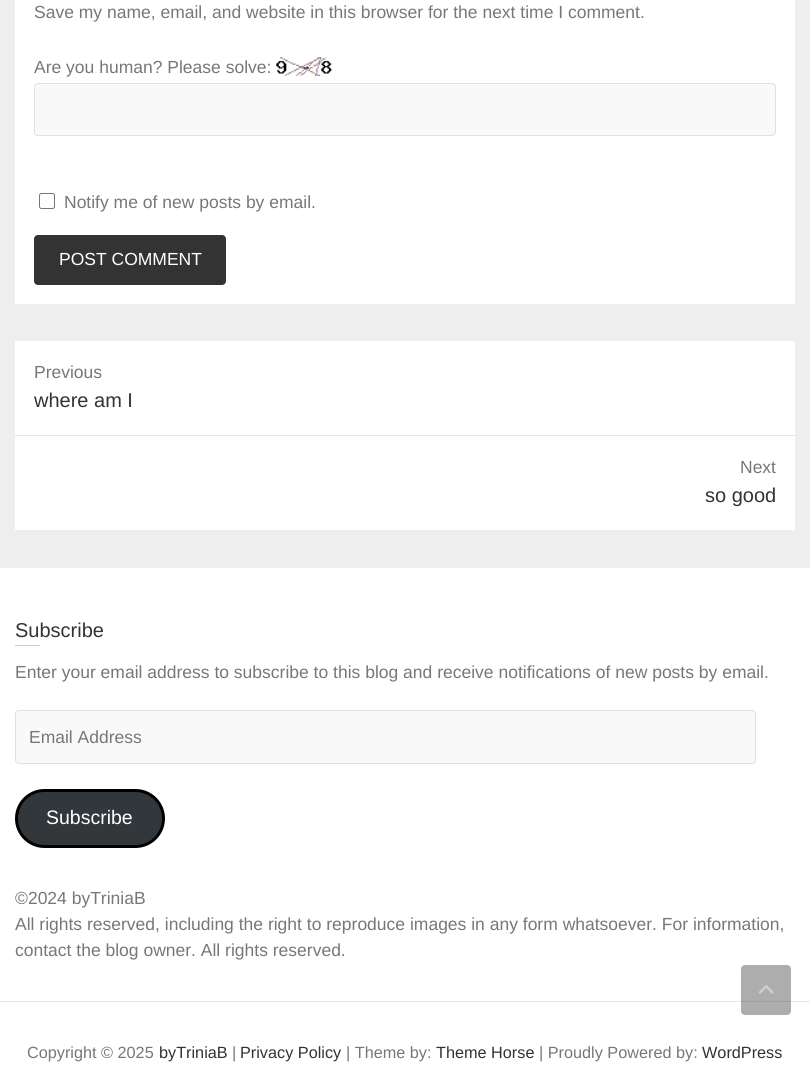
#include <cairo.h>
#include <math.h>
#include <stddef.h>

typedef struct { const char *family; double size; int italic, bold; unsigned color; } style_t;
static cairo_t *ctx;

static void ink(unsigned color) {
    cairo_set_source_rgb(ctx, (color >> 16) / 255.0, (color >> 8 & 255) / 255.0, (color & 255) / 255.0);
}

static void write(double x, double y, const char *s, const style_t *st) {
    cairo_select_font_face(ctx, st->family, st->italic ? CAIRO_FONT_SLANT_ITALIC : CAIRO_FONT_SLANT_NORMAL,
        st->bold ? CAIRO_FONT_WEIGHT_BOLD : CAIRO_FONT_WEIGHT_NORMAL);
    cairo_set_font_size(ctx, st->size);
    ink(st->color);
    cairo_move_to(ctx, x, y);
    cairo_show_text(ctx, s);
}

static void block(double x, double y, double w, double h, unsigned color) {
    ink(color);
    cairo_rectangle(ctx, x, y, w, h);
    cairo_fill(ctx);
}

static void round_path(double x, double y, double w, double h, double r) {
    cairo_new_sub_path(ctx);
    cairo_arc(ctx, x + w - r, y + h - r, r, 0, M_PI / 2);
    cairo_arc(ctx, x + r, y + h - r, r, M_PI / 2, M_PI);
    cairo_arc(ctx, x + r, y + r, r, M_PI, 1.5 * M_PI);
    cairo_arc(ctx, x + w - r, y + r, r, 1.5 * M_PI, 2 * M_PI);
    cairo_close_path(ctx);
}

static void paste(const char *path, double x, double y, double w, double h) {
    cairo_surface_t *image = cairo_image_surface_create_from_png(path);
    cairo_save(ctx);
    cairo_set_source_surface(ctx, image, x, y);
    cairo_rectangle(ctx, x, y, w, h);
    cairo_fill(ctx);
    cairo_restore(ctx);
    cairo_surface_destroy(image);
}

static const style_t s1 = {"Liberation Sans", 17.5, 0, 0, 0x777777};
static const style_t s2 = {"Liberation Sans", 17.5, 0, 0, 0xffffff};
static const style_t s3 = {"Liberation Sans", 20, 0, 0, 0x333333};
static const style_t s4 = {"Liberation Sans", 19.5, 0, 0, 0xffffff};
static const style_t s5 = {"Liberation Sans", 16.25, 0, 0, 0x777777};
static const style_t s6 = {"Liberation Sans", 16.25, 0, 0, 0x333333};

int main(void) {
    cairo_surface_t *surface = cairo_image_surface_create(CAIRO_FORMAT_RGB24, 810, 1090);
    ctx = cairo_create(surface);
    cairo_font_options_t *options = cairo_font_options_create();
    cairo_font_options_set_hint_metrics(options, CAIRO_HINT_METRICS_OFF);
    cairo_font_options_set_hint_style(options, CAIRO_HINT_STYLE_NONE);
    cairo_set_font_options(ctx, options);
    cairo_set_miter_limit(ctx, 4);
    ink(0xeeeeee);
    cairo_paint(ctx);
    block(15, 0, 780, 304, 0xffffff);
    write(34, 18, "Save my name, email, and website in this browser for the next time I comment.", &s1);
    write(34, 73, "Are you human? Please solve:", &s1);
    paste("pic1.png", 276, 57, 56, 19);
    ink(0xf9f9f9);
    round_path(34.5, 83.5, 741, 52, 3.5);
    cairo_fill_preserve(ctx);
    ink(0xe0e0e0);
    cairo_set_line_width(ctx, 1);
    cairo_stroke(ctx);
    round_path(39.5, 193.5, 15, 15, 2);
    ink(0x767676);
    cairo_stroke(ctx);
    write(64, 208, "Notify me of new posts by email.", &s1);
    ink(0x333333);
    round_path(34, 235, 192, 50, 4);
    cairo_fill(ctx);
    write(59, 265, "POST COMMENT", &s2);
    block(15, 341, 780, 189, 0xffffff);
    block(15, 435, 780, 1, 0xe6e6e6);
    write(34, 378, "Previous", &s1);
    write(34, 407, "where am I", &s3);
    write(740, 473, "Next", &s1);
    write(705, 502, "so good", &s3);
    block(0, 568, 810, 433, 0xffffff);
    write(15, 637, "Subscribe", &s3);
    block(15, 645, 25, 1, 0xcccccc);
    write(15, 678, "Enter your email address to subscribe to this blog and receive notifications of new posts by email.", &s1);
    ink(0xf9f9f9);
    round_path(15.5, 710.5, 740, 53, 3.5);
    cairo_fill_preserve(ctx);
    ink(0xe0e0e0);
    cairo_stroke(ctx);
    write(29, 743, "Email Address", &s1);
    ink(0x32373c);
    round_path(16.5, 790.5, 147, 56, 28);
    cairo_fill_preserve(ctx);
    ink(0x000000);
    cairo_set_line_width(ctx, 3);
    cairo_stroke(ctx);
    write(46, 824, "Subscribe", &s4);
    write(15, 904, "©2024 byTriniaB", &s1);
    write(15, 930, "All rights reserved, including the right to reproduce images in any form whatsoever. For information,", &s1);
    write(15, 956, "contact the blog owner. All rights reserved.", &s1);
    block(0, 1002, 810, 88, 0xffffff);
    block(0, 1001, 810, 1, 0xe6e6e6);
    cairo_set_source_rgba(ctx, 0.2, 0.2, 0.2, 0.4);
    round_path(741, 965, 50, 50, 4);
    cairo_fill(ctx);
    paste("pic2.png", 758, 985, 16, 9);
    write(27, 1058, "Copyright © 2025", &s5);
    write(159, 1058, "byTriniaB", &s6);
    write(232, 1058, "|", &s5);
    write(240, 1058, "Privacy Policy", &s6);
    write(346, 1058, "| Theme by:", &s5);
    write(436, 1058, "Theme Horse", &s6);
    write(539, 1058, "| Proudly Powered by:", &s5);
    write(702, 1058, "WordPress", &s6);
    cairo_surface_write_to_png(surface, "screenshot.png");
    cairo_font_options_destroy(options);
    cairo_destroy(ctx);
    cairo_surface_destroy(surface);
    return 0;
}
